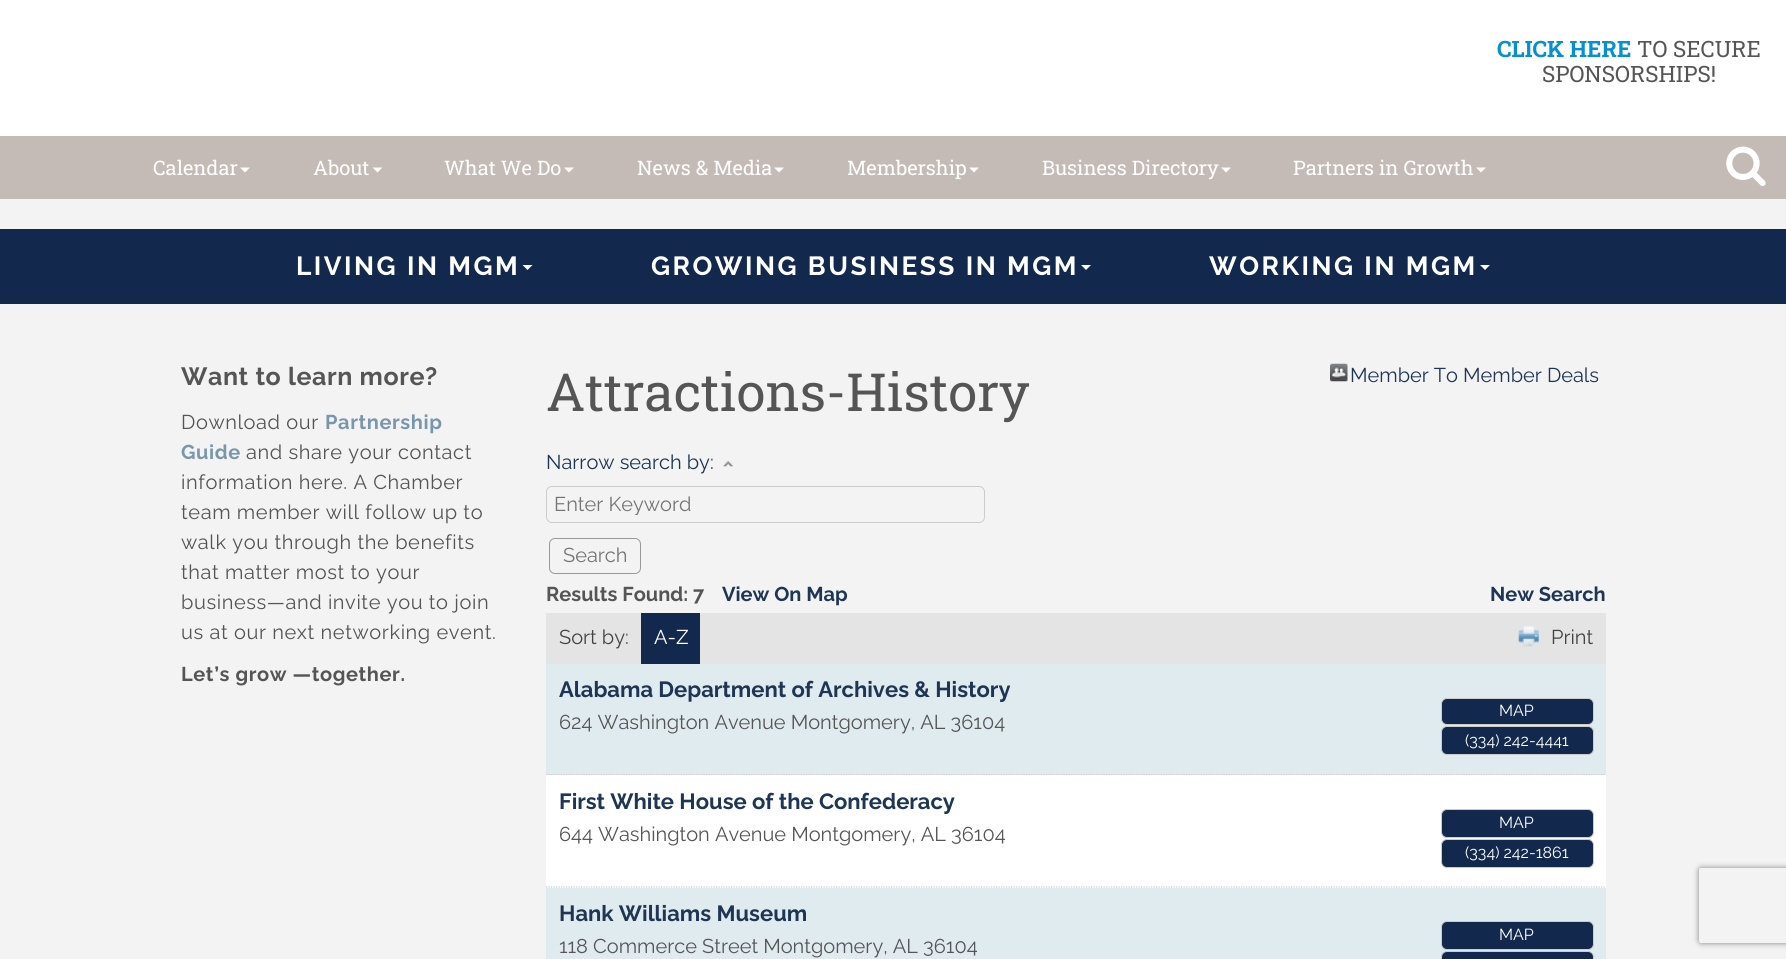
#include <cairo.h>
#include <math.h>
#include <stddef.h>

typedef struct { const char *family; double size; int italic, bold; unsigned color; } style_t;
static cairo_t *ctx;

static void ink(unsigned color) {
    cairo_set_source_rgb(ctx, (color >> 16) / 255.0, (color >> 8 & 255) / 255.0, (color & 255) / 255.0);
}

static void write(double x, double y, const char *s, const style_t *st) {
    cairo_select_font_face(ctx, st->family, st->italic ? CAIRO_FONT_SLANT_ITALIC : CAIRO_FONT_SLANT_NORMAL,
        st->bold ? CAIRO_FONT_WEIGHT_BOLD : CAIRO_FONT_WEIGHT_NORMAL);
    cairo_set_font_size(ctx, st->size);
    ink(st->color);
    cairo_move_to(ctx, x, y);
    cairo_show_text(ctx, s);
}

static void write_spaced(double x, double y, const char *s, double letter, double word) {
    cairo_move_to(ctx, x, y);
    while (*s) {
        char ch[5] = {0};
        int n = 0;
        do ch[n++] = *s++; while ((*s & 0xC0) == 0x80);
        cairo_show_text(ctx, ch);
        cairo_rel_move_to(ctx, letter + word * (*ch == ' '), 0);
    }
}

static void block(double x, double y, double w, double h, unsigned color) {
    ink(color);
    cairo_rectangle(ctx, x, y, w, h);
    cairo_fill(ctx);
}

static void round_path(double x, double y, double w, double h, double r) {
    cairo_new_sub_path(ctx);
    cairo_arc(ctx, x + w - r, y + h - r, r, 0, M_PI / 2);
    cairo_arc(ctx, x + r, y + h - r, r, M_PI / 2, M_PI);
    cairo_arc(ctx, x + r, y + r, r, M_PI, 1.5 * M_PI);
    cairo_arc(ctx, x + w - r, y + r, r, 1.5 * M_PI, 2 * M_PI);
    cairo_close_path(ctx);
}

static void blur_box(double x, double y, double w, double h, double r, double blur, double alpha) {
    cairo_push_group_with_content(ctx, CAIRO_CONTENT_ALPHA);
    cairo_set_operator(ctx, CAIRO_OPERATOR_SOURCE);
    for (int i = 15; i >= -15 && fmin(w, h) + blur * i / 3 > 0; i -= 2) {
        double e = blur * i / 6;
        cairo_set_source_rgba(ctx, 0, 0, 0, alpha * erfc((i - 1) / 8.5) / 2);
        round_path(x - e, y - e, w + 2 * e, h + 2 * e, fmax(0, fmin(r + e + blur * .6, fmin(w, h) / 2 + e)));
        cairo_fill(ctx);
    }
    cairo_pattern_t *soft = cairo_pop_group(ctx);
    cairo_mask(ctx, soft);
    cairo_pattern_destroy(soft);
}

static void paste(const char *path, double x, double y, double w, double h) {
    cairo_surface_t *image = cairo_image_surface_create_from_png(path);
    cairo_save(ctx);
    cairo_set_source_surface(ctx, image, x, y);
    cairo_rectangle(ctx, x, y, w, h);
    cairo_fill(ctx);
    cairo_restore(ctx);
    cairo_surface_destroy(image);
}

static const style_t s1 = {"Roboto Slab", 22.5, 0, 1, 0x0690cf};
static const style_t s2 = {"Roboto Slab", 22.5, 0, 0, 0x555555};
static const style_t s3 = {"Roboto Slab", 20, 0, 0, 0xffffff};
static const style_t s4 = {"Roboto Slab", 52.5, 0, 0, 0x555555};
static const style_t s5 = {"Raleway", 20, 0, 0, 0x1e3653};
static const style_t s6 = {"Raleway", 20, 0, 0, 0x757575};
static const style_t s7 = {"Raleway", 20, 0, 1, 0x555555};
static const style_t s8 = {"Raleway", 20, 0, 1, 0x1e3653};
static const style_t s9 = {"Raleway", 20, 0, 0, 0x444444};
static const style_t s10 = {"Raleway", 20, 0, 0, 0xffffff};
static const style_t s11 = {"Raleway", 22, 0, 1, 0x1e3653};
static const style_t s12 = {"Raleway", 20, 0, 0, 0x555555};
static const style_t s13 = {"Raleway", 16, 0, 0, 0xffffff};

int main(void) {
    cairo_surface_t *surface = cairo_image_surface_create(CAIRO_FORMAT_RGB24, 1786, 959);
    ctx = cairo_create(surface);
    cairo_font_options_t *options = cairo_font_options_create();
    cairo_font_options_set_hint_metrics(options, CAIRO_HINT_METRICS_OFF);
    cairo_font_options_set_hint_style(options, CAIRO_HINT_STYLE_NONE);
    cairo_set_font_options(ctx, options);
    cairo_set_miter_limit(ctx, 4);
    ink(0xf3f3f3);
    cairo_paint(ctx);
    block(0, 0, 1786, 136, 0xffffff);
    write(1497, 57, "CLICK HERE", &s1);
    write(1637, 57, "TO SECURE", &s2);
    write(1542, 82, "SPONSORSHIPS!", &s2);
    block(0, 136, 1786, 63, 0xc5bbb6);
    write(153, 175, "Calendar", &s3);
    cairo_new_path(ctx);
    cairo_move_to(ctx, 240, 167.5);
    cairo_line_to(ctx, 250, 167.5);
    cairo_line_to(ctx, 245, 172.5);
    cairo_close_path(ctx);
    cairo_fill(ctx);
    write(313, 175, "About", &s3);
    cairo_new_path(ctx);
    cairo_move_to(ctx, 372.5, 167.5);
    cairo_line_to(ctx, 382.5, 167.5);
    cairo_line_to(ctx, 377.5, 172.5);
    cairo_close_path(ctx);
    cairo_fill(ctx);
    write(444, 175, "What We Do", &s3);
    cairo_new_path(ctx);
    cairo_move_to(ctx, 564, 167.5);
    cairo_line_to(ctx, 574, 167.5);
    cairo_line_to(ctx, 569, 172.5);
    cairo_close_path(ctx);
    cairo_fill(ctx);
    write(637, 175, "News & Media", &s3);
    cairo_new_path(ctx);
    cairo_move_to(ctx, 774, 167.5);
    cairo_line_to(ctx, 784, 167.5);
    cairo_line_to(ctx, 779, 172.5);
    cairo_close_path(ctx);
    cairo_fill(ctx);
    write(847, 175, "Membership", &s3);
    cairo_new_path(ctx);
    cairo_move_to(ctx, 969, 167.5);
    cairo_line_to(ctx, 979, 167.5);
    cairo_line_to(ctx, 974, 172.5);
    cairo_close_path(ctx);
    cairo_fill(ctx);
    write(1042, 175, "Business Directory", &s3);
    cairo_new_path(ctx);
    cairo_move_to(ctx, 1221, 167.5);
    cairo_line_to(ctx, 1231, 167.5);
    cairo_line_to(ctx, 1226, 172.5);
    cairo_close_path(ctx);
    cairo_fill(ctx);
    write(1293, 175, "Partners in Growth", &s3);
    cairo_new_path(ctx);
    cairo_move_to(ctx, 1476, 167.5);
    cairo_line_to(ctx, 1486, 167.5);
    cairo_line_to(ctx, 1481, 172.5);
    cairo_close_path(ctx);
    cairo_fill(ctx);
    ink(0xc5bbb6);
    cairo_new_path(ctx);
    cairo_move_to(ctx, 1724, 138);
    cairo_line_to(ctx, 1762, 138);
    cairo_curve_to(ctx, 1765, 138, 1766, 139, 1766, 141);
    cairo_curve_to(ctx, 1766, 135, 1760, 136, 1756, 136);
    cairo_line_to(ctx, 1730, 136);
    cairo_curve_to(ctx, 1726, 136, 1720, 135, 1720, 141);
    cairo_curve_to(ctx, 1720, 139, 1722, 138, 1724, 138);
    cairo_close_path(ctx);
    cairo_fill(ctx);
    paste("pic1.png", 1726, 146, 40, 40);
    block(0, 229, 1786, 75, 0x12284c);
    cairo_select_font_face(ctx, "Raleway", CAIRO_FONT_SLANT_NORMAL, CAIRO_FONT_WEIGHT_BOLD);
    cairo_set_font_size(ctx, 26.25);
    ink(0xffffff);
    write_spaced(296, 275, "LIVING IN MGM", 2.5, 0);
    cairo_new_path(ctx);
    cairo_move_to(ctx, 522.5, 265);
    cairo_line_to(ctx, 532.5, 265);
    cairo_line_to(ctx, 527.5, 270);
    cairo_close_path(ctx);
    cairo_fill(ctx);
    write_spaced(651, 275, "GROWING BUSINESS IN MGM", 2.5, 0);
    cairo_new_path(ctx);
    cairo_move_to(ctx, 1081, 265);
    cairo_line_to(ctx, 1091, 265);
    cairo_line_to(ctx, 1086, 270);
    cairo_close_path(ctx);
    cairo_fill(ctx);
    write_spaced(1209, 275, "WORKING IN MGM", 2.5, 0);
    cairo_new_path(ctx);
    cairo_move_to(ctx, 1480, 265);
    cairo_line_to(ctx, 1490, 265);
    cairo_line_to(ctx, 1485, 270);
    cairo_close_path(ctx);
    cairo_fill(ctx);
    cairo_set_font_size(ctx, 25);
    ink(0x555555);
    write_spaced(181, 385, "Want to learn more?", 0.6, 0);
    cairo_select_font_face(ctx, "Raleway", CAIRO_FONT_SLANT_NORMAL, CAIRO_FONT_WEIGHT_NORMAL);
    cairo_set_font_size(ctx, 20);
    write_spaced(181, 429, "Download our", 0.6, 0);
    cairo_select_font_face(ctx, "Raleway", CAIRO_FONT_SLANT_NORMAL, CAIRO_FONT_WEIGHT_BOLD);
    ink(0x7897aa);
    write_spaced(325, 429, "Partnership", 0.6, 0);
    write_spaced(181, 459, "Guide", 0.6, 0);
    cairo_select_font_face(ctx, "Raleway", CAIRO_FONT_SLANT_NORMAL, CAIRO_FONT_WEIGHT_NORMAL);
    ink(0x555555);
    write_spaced(246, 459, "and share your contact", 0.6, 0);
    write_spaced(181, 489, "information here. A Chamber", 0.6, 0);
    write_spaced(181, 519, "team member will follow up to", 0.6, 0);
    write_spaced(181, 549, "walk you through the benefits", 0.6, 0);
    write_spaced(181, 579, "that matter most to your", 0.6, 0);
    write_spaced(181, 609, "business—and invite you to join", 0.6, 0);
    write_spaced(181, 639, "us at our next networking event.", 0.6, 0);
    cairo_select_font_face(ctx, "Raleway", CAIRO_FONT_SLANT_NORMAL, CAIRO_FONT_WEIGHT_BOLD);
    write_spaced(181, 681, "Let’s grow —together.", 0.6, 0);
    write(546, 411, "Attractions-History", &s4);
    paste("pic2.png", 1330, 363, 18, 19);
    write(1350, 382, "Member To Member Deals", &s5);
    write(546, 469, "Narrow search by:", &s5);
    paste("pic3.png", 723, 461, 10, 6);
    round_path(546.5, 486.5, 438, 36, 5.5);
    ink(0xcccccc);
    cairo_set_line_width(ctx, 1);
    cairo_stroke(ctx);
    cairo_save(ctx);
    cairo_rectangle(ctx, 554, 491, 424, 24);
    cairo_clip(ctx);
    write(554, 511, "Enter Keyword", &s6);
    cairo_restore(ctx);
    round_path(549.5, 538.5, 91, 35, 5.5);
    ink(0x999999);
    cairo_stroke(ctx);
    write(563, 562, "Search", &s6);
    write(546, 601, "Results Found: 7", &s7);
    write(722, 601, "View On Map", &s8);
    write(1490, 601, "New Search", &s8);
    block(546, 613, 1060, 51, 0xe4e4e4);
    write(559, 644, "Sort by:", &s9);
    block(641, 613, 59, 51, 0x12284c);
    write(654, 644, "A-Z", &s10);
    paste("pic4.png", 1518, 626, 21, 21);
    write(1551, 644, "Print", &s9);
    block(547, 774, 1059, 1, 0xe0ebf0);
    cairo_new_path(ctx);
    cairo_move_to(ctx, 546, 774.5);
    cairo_line_to(ctx, 1606, 774.5);
    ink(0xcccccc);
    cairo_set_line_width(ctx, 1.2);
    cairo_set_dash(ctx, (double[]){1.25, 1.25}, 2, 0);
    cairo_stroke(ctx);
    block(546, 664, 1060, 110, 0xe0ebf0);
    write(559, 697, "Alabama Department of Archives & History", &s11);
    write(559, 729, "624 Washington Avenue Montgomery, AL 36104", &s12);
    ink(0x12284c);
    round_path(1441.5, 698.5, 152, 26, 5.5);
    cairo_fill_preserve(ctx);
    ink(0xcccccc);
    cairo_set_line_width(ctx, 1);
    cairo_set_dash(ctx, NULL, 0, 0);
    cairo_stroke(ctx);
    write(1499, 716, "MAP", &s13);
    ink(0x12284c);
    round_path(1441.5, 726.5, 152, 28, 5.5);
    cairo_fill_preserve(ctx);
    ink(0xcccccc);
    cairo_stroke(ctx);
    write(1465, 746, "(334) 242-4441", &s13);
    block(546, 775, 1060, 113, 0xffffff);
    cairo_new_path(ctx);
    cairo_move_to(ctx, 546, 887);
    cairo_line_to(ctx, 1606, 887);
    ink(0xcccccc);
    cairo_set_line_width(ctx, 1.2);
    cairo_set_dash(ctx, (double[]){1.25, 1.25}, 2, 0);
    cairo_stroke(ctx);
    write(559, 809, "First White House of the Confederacy", &s11);
    write(559, 841, "644 Washington Avenue Montgomery, AL 36104", &s12);
    ink(0x12284c);
    round_path(1441.5, 809.5, 152, 28, 5.5);
    cairo_fill_preserve(ctx);
    ink(0xcccccc);
    cairo_set_line_width(ctx, 1);
    cairo_set_dash(ctx, NULL, 0, 0);
    cairo_stroke(ctx);
    write(1499, 828, "MAP", &s13);
    ink(0x12284c);
    round_path(1441.5, 839.5, 152, 28, 5.5);
    cairo_fill_preserve(ctx);
    ink(0xcccccc);
    cairo_stroke(ctx);
    write(1465, 858, "(334) 242-1861", &s13);
    block(546, 888, 1060, 71, 0xe0ebf0);
    write(559, 921, "Hank Williams Museum", &s11);
    write(559, 953, "118 Commerce Street Montgomery, AL 36104", &s12);
    ink(0x12284c);
    round_path(1441.5, 921.5, 152, 28, 5.5);
    cairo_fill_preserve(ctx);
    ink(0xcccccc);
    cairo_stroke(ctx);
    write(1499, 940, "MAP", &s13);
    ink(0x12284c);
    round_path(1441.5, 951.5, 152, 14, 5.5);
    cairo_fill_preserve(ctx);
    ink(0xcccccc);
    cairo_stroke(ctx);
    cairo_save(ctx);
    cairo_set_fill_rule(ctx, CAIRO_FILL_RULE_EVEN_ODD);
    cairo_new_path(ctx);
    cairo_move_to(ctx, 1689, 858);
    cairo_line_to(ctx, 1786, 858);
    cairo_line_to(ctx, 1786, 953);
    cairo_line_to(ctx, 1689, 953);
    cairo_close_path(ctx);
    cairo_move_to(ctx, 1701.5, 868);
    cairo_line_to(ctx, 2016.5, 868);
    cairo_curve_to(ctx, 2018, 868, 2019, 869, 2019, 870.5);
    cairo_line_to(ctx, 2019, 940.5);
    cairo_curve_to(ctx, 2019, 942, 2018, 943, 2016.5, 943);
    cairo_line_to(ctx, 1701.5, 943);
    cairo_curve_to(ctx, 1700, 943, 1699, 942, 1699, 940.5);
    cairo_line_to(ctx, 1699, 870.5);
    cairo_curve_to(ctx, 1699, 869, 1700, 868, 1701.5, 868);
    cairo_close_path(ctx);
    cairo_clip(ctx);
    ink(0x808080);
    blur_box(1699, 868, 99, 75, 2.5, 3, 1);
    cairo_restore(ctx);
    cairo_surface_write_to_png(surface, "screenshot.png");
    cairo_font_options_destroy(options);
    cairo_destroy(ctx);
    cairo_surface_destroy(surface);
    return 0;
}
